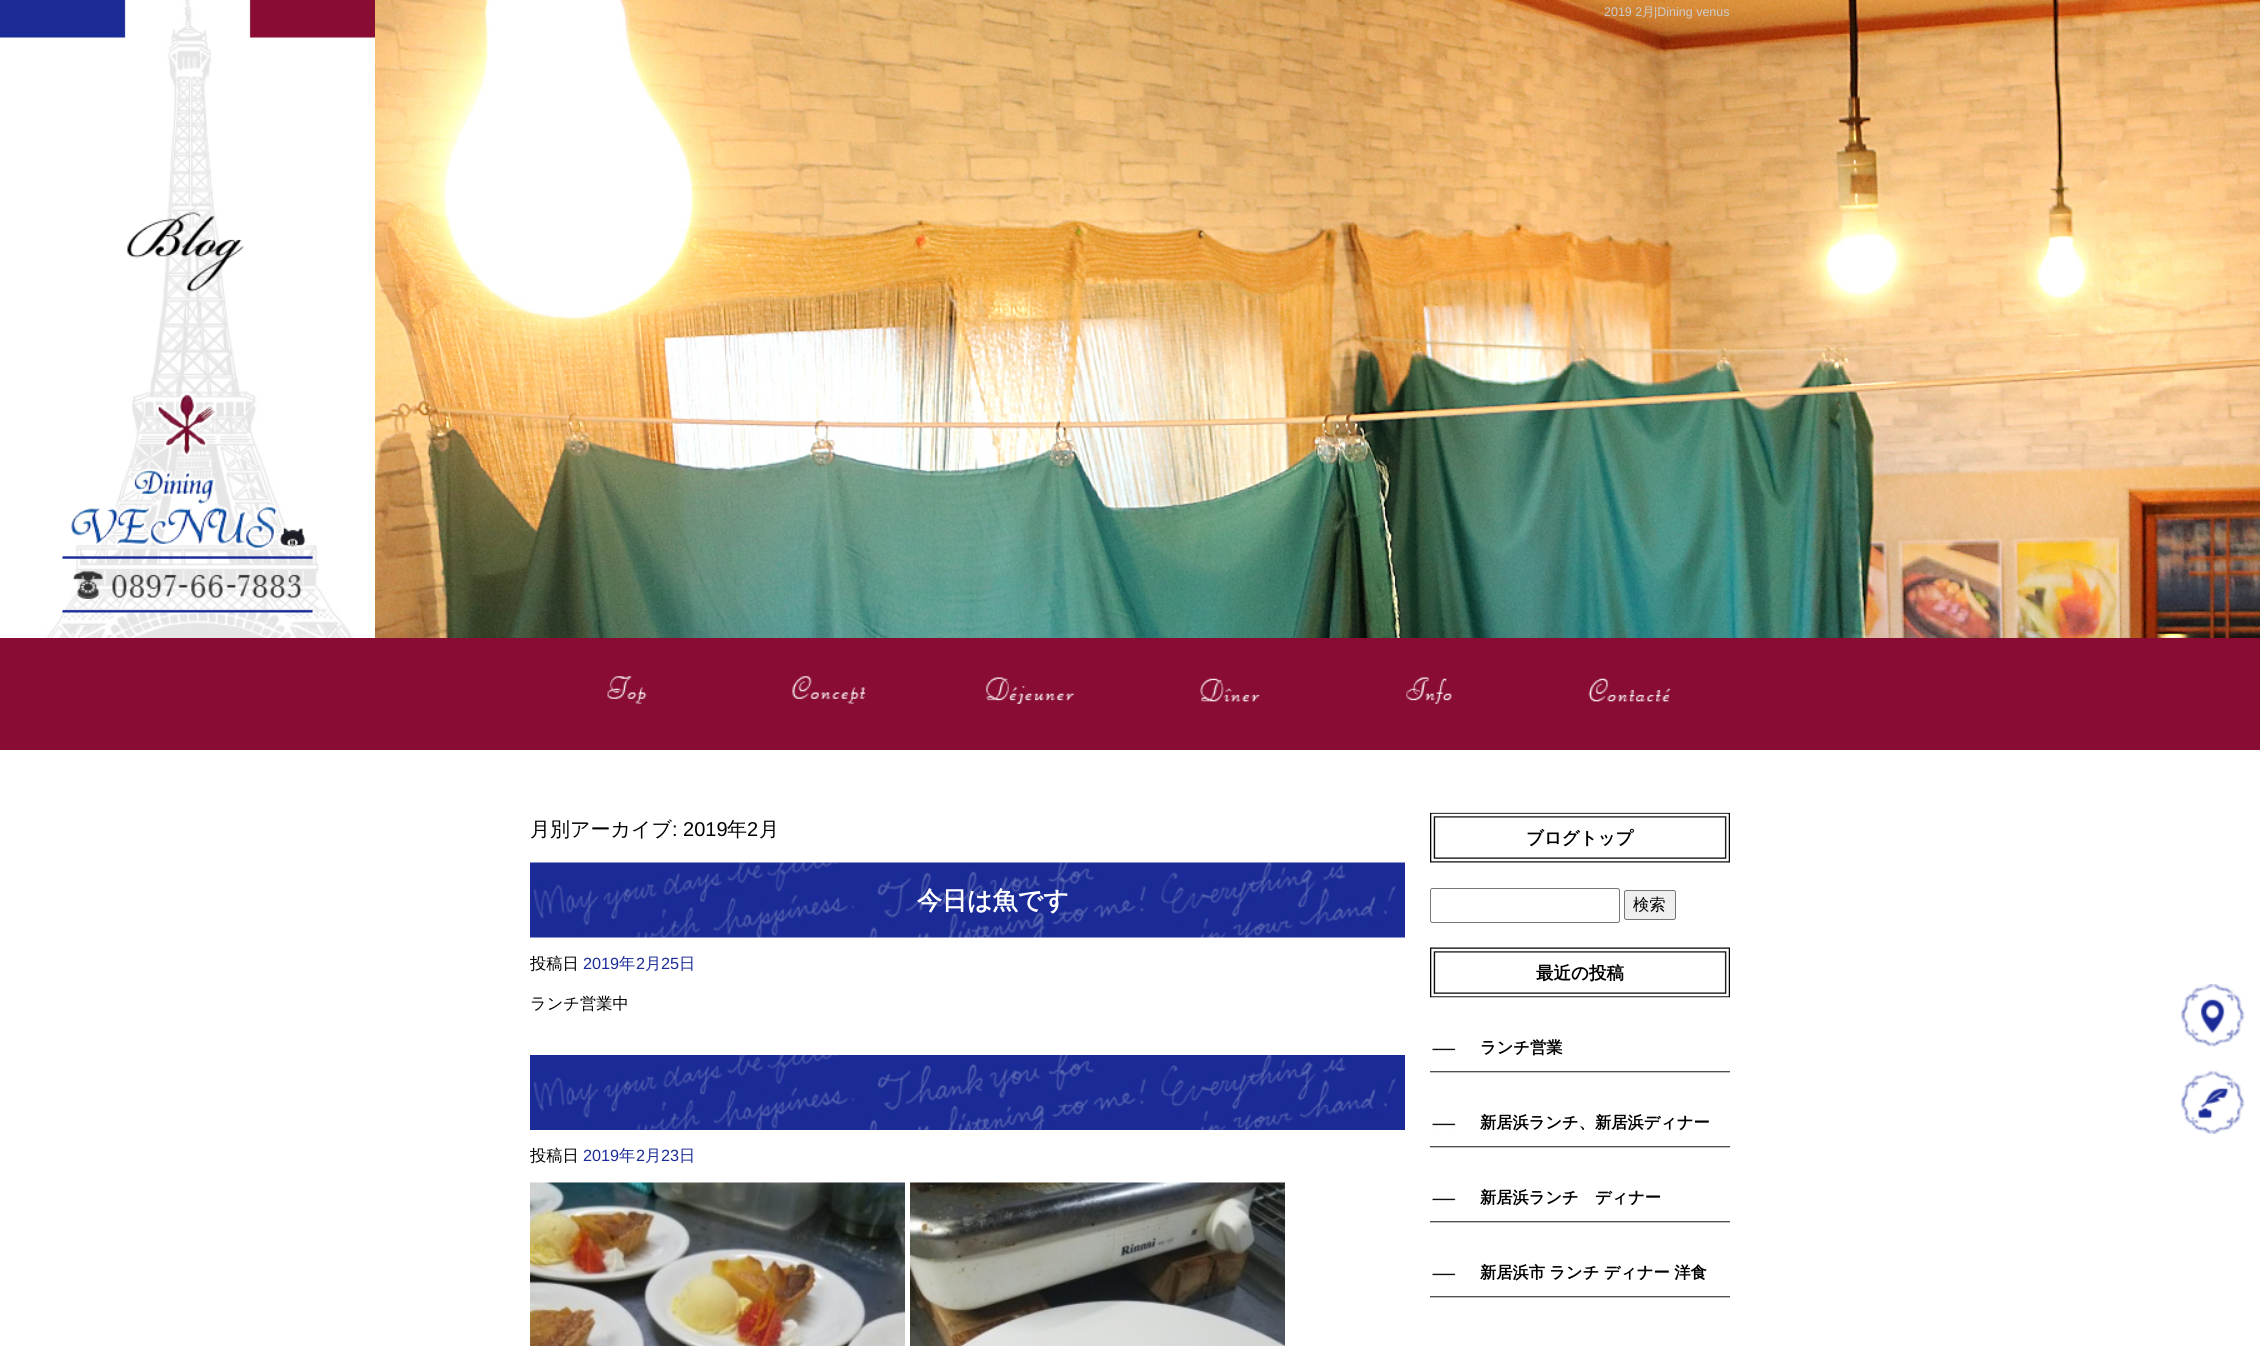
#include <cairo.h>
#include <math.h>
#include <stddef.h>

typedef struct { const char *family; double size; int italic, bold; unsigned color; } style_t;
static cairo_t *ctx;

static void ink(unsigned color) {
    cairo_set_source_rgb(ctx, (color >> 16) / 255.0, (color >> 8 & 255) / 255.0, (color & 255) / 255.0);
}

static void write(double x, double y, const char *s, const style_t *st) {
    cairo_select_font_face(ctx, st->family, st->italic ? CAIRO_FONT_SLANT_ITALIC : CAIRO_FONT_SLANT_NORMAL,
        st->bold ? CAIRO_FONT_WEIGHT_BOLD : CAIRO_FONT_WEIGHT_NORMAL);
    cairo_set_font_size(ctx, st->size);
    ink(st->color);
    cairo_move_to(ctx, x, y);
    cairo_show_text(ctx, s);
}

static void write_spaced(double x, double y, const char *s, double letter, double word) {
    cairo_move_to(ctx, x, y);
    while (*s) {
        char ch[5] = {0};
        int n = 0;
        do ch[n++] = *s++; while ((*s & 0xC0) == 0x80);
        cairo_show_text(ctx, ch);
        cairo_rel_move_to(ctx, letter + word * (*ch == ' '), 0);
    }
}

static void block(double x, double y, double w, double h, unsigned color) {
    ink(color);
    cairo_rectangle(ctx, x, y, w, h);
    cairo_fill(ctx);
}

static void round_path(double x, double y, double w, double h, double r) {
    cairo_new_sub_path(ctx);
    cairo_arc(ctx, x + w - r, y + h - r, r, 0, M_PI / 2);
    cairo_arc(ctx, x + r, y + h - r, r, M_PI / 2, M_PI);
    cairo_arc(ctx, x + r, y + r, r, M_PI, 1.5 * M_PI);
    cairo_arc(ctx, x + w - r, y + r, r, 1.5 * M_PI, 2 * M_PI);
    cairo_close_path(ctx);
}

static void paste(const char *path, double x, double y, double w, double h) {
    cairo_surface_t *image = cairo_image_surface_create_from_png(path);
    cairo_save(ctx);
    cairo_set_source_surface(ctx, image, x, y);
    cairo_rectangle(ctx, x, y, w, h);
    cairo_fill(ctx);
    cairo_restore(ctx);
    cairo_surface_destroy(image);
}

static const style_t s1 = {"Liberation Sans", 12.5, 0, 0, 0xcccccc};
static const style_t s2 = {"WenQuanYi Zen Hei Medium", 12.5, 0, 0, 0xcccccc};
static const style_t s3 = {"WenQuanYi Zen Hei Medium", 20, 0, 0, 0x000000};
static const style_t s4 = {"Liberation Sans", 20, 0, 0, 0x000000};
static const style_t s5 = {"WenQuanYi Zen Hei", 25, 0, 1, 0xffffff};
static const style_t s6 = {"WenQuanYi Zen Hei Medium", 16.25, 0, 0, 0x000000};
static const style_t s7 = {"Liberation Sans", 16.25, 0, 0, 0x1a2b97};
static const style_t s8 = {"WenQuanYi Zen Hei Medium", 16.25, 0, 0, 0x1a2b97};
static const style_t s9 = {"WenQuanYi Zen Hei", 17.5, 0, 1, 0x000000};
static const style_t s10 = {"WenQuanYi Zen Hei", 16.25, 0, 1, 0x000000};

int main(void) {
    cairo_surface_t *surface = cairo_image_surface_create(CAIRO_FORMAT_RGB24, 2260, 1346);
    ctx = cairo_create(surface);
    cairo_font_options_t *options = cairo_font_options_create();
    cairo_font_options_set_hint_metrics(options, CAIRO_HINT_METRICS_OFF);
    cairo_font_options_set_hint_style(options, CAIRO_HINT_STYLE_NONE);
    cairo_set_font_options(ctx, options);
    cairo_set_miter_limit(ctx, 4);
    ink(0xffffff);
    cairo_paint(ctx);
    paste("pic1.png", 375, 0, 1885, 638);
    paste("pic2.png", 0, 0, 375, 638);
    write(1604, 16, "2019 2", &s1);
    write(1642, 16, "月", &s2);
    write(1654, 16, "|Dining venus", &s1);
    block(0, 638, 2260, 112, 0x890c33);
    paste("pic3.png", 607, 676, 40, 28);
    paste("pic4.png", 792, 676, 74, 28);
    paste("pic5.png", 986, 677, 88, 27);
    paste("pic6.png", 1199, 678, 62, 24);
    paste("pic7.png", 1406, 677, 46, 27);
    paste("pic8.png", 1588, 678, 83, 24);
    paste("pic9.png", 127, 212, 117, 80);
    write(530, 836, "月別アーカイブ", &s3);
    write(672, 836, ": 2019", &s4);
    write(727, 836, "年", &s3);
    write(747, 836, "2", &s4);
    write(759, 836, "月", &s3);
    paste("pic10.png", 530, 862, 875, 76);
    write(917, 909, "今日は魚です", &s5);
    write(530, 969, "投稿日", &s6);
    write(583, 969, "2019", &s7);
    write(619, 969, "年", &s8);
    write(636, 969, "2", &s7);
    write(645, 969, "月", &s8);
    write(661, 969, "25", &s7);
    write(679, 969, "日", &s8);
    write(530, 1009, "ランチ営業中", &s6);
    paste("pic11.png", 530, 1055, 875, 75);
    write(530, 1161, "投稿日", &s6);
    write(583, 1161, "2019", &s7);
    write(619, 1161, "年", &s8);
    write(636, 1161, "2", &s7);
    write(645, 1161, "月", &s8);
    write(661, 1161, "23", &s7);
    write(679, 1161, "日", &s8);
    paste("pic12.png", 530, 1182, 375, 164);
    paste("pic13.png", 910, 1182, 375, 164);
    paste("pic14.png", 1430, 812, 300, 51);
    write(1526, 844, "ブログトップ", &s9);
    round_path(1430.5, 888.5, 189, 34, 2);
    ink(0x767676);
    cairo_set_line_width(ctx, 1);
    cairo_stroke(ctx);
    ink(0xefefef);
    round_path(1624.5, 890.5, 51, 29, 2);
    cairo_fill_preserve(ctx);
    ink(0x767676);
    cairo_stroke(ctx);
    write(1633, 910, "検索", &s6);
    paste("pic15.png", 1430, 947, 300, 51);
    write(1536, 979, "最近の投稿", &s9);
    paste("pic16.png", 1430, 997, 300, 76);
    write(1480, 1053, "ランチ営業", &s10);
    paste("pic16.png", 1430, 1072, 300, 76);
    write(1480, 1128, "新居浜ランチ、新居浜ディナー", &s10);
    paste("pic16.png", 1430, 1147, 300, 76);
    write(1480, 1203, "新居浜ランチ　ディナー", &s10);
    paste("pic17.png", 1430, 1222, 300, 75);
    write_spaced(1480, 1278, "新居浜市 ランチ ディナー 洋食", 0, -0.5);
    block(1430, 1297, 300, 1, 0xbfbfbf);
    paste("pic18.png", 2181, 984, 64, 63);
    paste("pic19.png", 2181, 1070, 64, 64);
    cairo_surface_write_to_png(surface, "screenshot.png");
    cairo_font_options_destroy(options);
    cairo_destroy(ctx);
    cairo_surface_destroy(surface);
    return 0;
}
